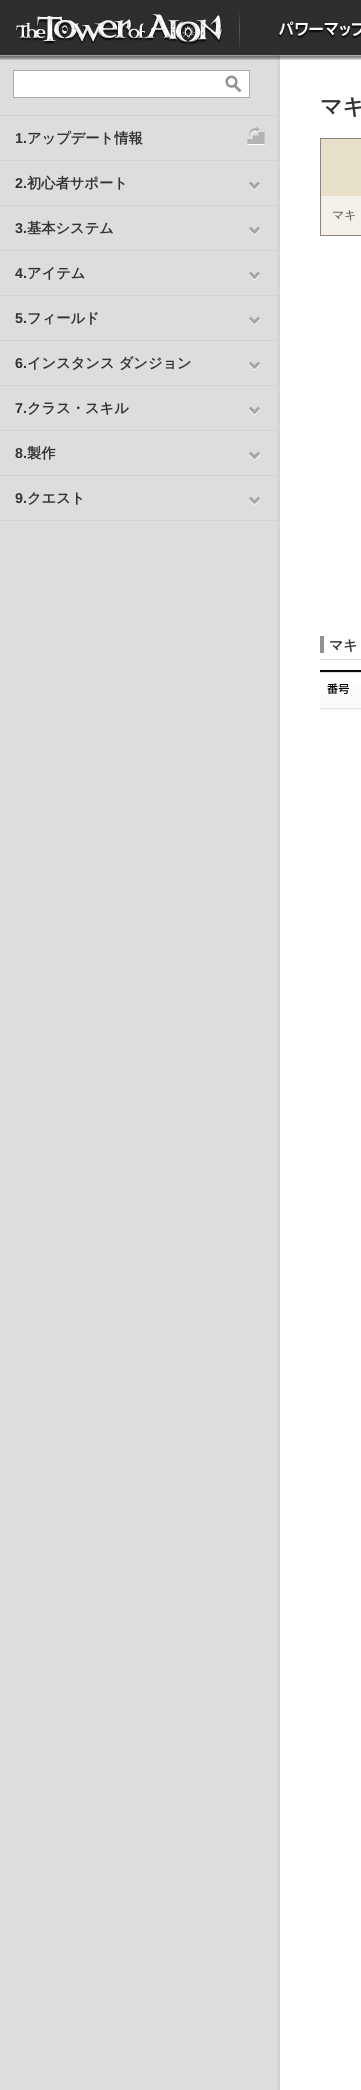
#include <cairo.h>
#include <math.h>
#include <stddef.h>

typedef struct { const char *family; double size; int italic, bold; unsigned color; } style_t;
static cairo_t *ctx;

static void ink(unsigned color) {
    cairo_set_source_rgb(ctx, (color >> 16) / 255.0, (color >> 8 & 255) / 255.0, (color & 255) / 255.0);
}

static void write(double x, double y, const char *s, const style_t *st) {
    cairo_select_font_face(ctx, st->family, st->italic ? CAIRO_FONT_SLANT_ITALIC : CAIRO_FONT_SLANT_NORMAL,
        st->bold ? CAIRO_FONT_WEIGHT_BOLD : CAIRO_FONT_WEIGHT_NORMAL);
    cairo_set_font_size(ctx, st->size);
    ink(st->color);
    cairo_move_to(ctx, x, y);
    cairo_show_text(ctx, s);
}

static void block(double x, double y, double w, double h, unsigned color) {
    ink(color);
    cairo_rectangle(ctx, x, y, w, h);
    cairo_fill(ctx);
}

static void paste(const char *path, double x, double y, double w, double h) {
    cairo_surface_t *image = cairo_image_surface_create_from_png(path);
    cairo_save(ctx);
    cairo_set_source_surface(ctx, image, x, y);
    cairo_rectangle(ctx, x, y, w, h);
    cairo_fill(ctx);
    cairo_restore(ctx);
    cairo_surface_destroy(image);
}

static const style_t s1 = {"Liberation Sans", 14.25, 0, 1, 0x333333};
static const style_t s2 = {"WenQuanYi Zen Hei", 14.25, 0, 1, 0x333333};
static const style_t s3 = {"WenQuanYi Zen Hei", 22, 0, 1, 0x333333};
static const style_t s4 = {"WenQuanYi Zen Hei Medium", 12, 0, 0, 0x535352};
static const style_t s5 = {"WenQuanYi Zen Hei", 14, 0, 1, 0x333333};

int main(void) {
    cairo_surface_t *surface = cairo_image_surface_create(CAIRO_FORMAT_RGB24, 361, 2090);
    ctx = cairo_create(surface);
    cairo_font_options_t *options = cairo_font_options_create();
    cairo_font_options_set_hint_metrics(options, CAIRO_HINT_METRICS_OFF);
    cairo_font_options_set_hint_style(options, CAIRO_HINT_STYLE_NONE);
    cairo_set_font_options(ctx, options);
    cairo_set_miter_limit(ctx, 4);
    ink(0xffffff);
    cairo_paint(ctx);
    paste("pic5.png", 0, 55, 280, 2035);
    paste("pic1.png", 0, 0, 361, 60);
    paste("pic2.png", 239, 11, 1, 39);
    paste("pic3.png", 15, 14, 208, 31);
    paste("pic4.png", 278, 21, 83, 18);
    block(0, 115, 280, 1, 0xd1d1d1);
    ink(0xffffff);
    cairo_rectangle(ctx, 13.5, 70.5, 236, 27);
    cairo_fill_preserve(ctx);
    ink(0xababab);
    cairo_set_line_width(ctx, 1);
    cairo_stroke(ctx);
    paste("pic6.png", 225, 75, 17, 18);
    block(0, 160, 280, 1, 0xd1d1d1);
    paste("pic7.png", 247, 126, 18, 19);
    write(15, 143, "1.", &s1);
    write(27, 143, "アップデート情報", &s2);
    block(0, 205, 280, 1, 0xd1d1d1);
    paste("pic8.png", 249, 181, 11, 10);
    write(15, 188, "2.", &s1);
    write(27, 188, "初心者サポート", &s2);
    block(0, 250, 280, 1, 0xd1d1d1);
    paste("pic8.png", 249, 226, 11, 10);
    write(15, 233, "3.", &s1);
    write(27, 233, "基本システム", &s2);
    block(0, 295, 280, 1, 0xd1d1d1);
    paste("pic8.png", 249, 271, 11, 10);
    write(15, 278, "4.", &s1);
    write(27, 278, "アイテム", &s2);
    block(0, 340, 280, 1, 0xd1d1d1);
    paste("pic8.png", 249, 316, 11, 10);
    write(15, 323, "5.", &s1);
    write(27, 323, "フィールド", &s2);
    block(0, 385, 280, 1, 0xd1d1d1);
    paste("pic8.png", 249, 361, 11, 10);
    write(15, 368, "6.", &s1);
    write(27, 368, "インスタンス ダンジョン", &s2);
    block(0, 430, 280, 1, 0xd1d1d1);
    paste("pic8.png", 249, 406, 11, 10);
    write(15, 413, "7.", &s1);
    write(27, 413, "クラス・スキル", &s2);
    block(0, 475, 280, 1, 0xd1d1d1);
    paste("pic8.png", 249, 451, 11, 10);
    write(15, 458, "8.", &s1);
    write(27, 458, "製作", &s2);
    block(0, 520, 280, 1, 0xd1d1d1);
    paste("pic8.png", 249, 496, 11, 10);
    write(15, 503, "9.", &s1);
    write(27, 503, "クエスト", &s2);
    write(320, 114, "マキ", &s3);
    block(321, 196, 40, 39, 0xf4f1eb);
    block(320, 138, 41, 1, 0x908080);
    block(320, 235, 41, 1, 0x908080);
    block(320, 138, 1, 98, 0x908080);
    block(321, 139, 40, 57, 0xe8e1ca);
    write(332, 219, "マキ", &s4);
    block(320, 659, 41, 1, 0xdddddd);
    block(320, 636, 4, 17, 0x929292);
    write(329, 650, "マキ", &s5);
    paste("pic9.png", 320, 670, 35, 41);
    paste("pic10.png", 327, 683, 22, 11);
    paste("pic11.png", 355, 670, 6, 41);
    cairo_surface_write_to_png(surface, "screenshot.png");
    cairo_font_options_destroy(options);
    cairo_destroy(ctx);
    cairo_surface_destroy(surface);
    return 0;
}
